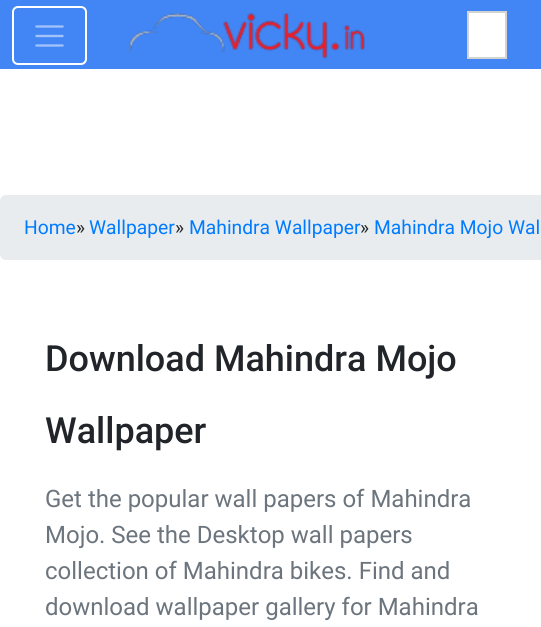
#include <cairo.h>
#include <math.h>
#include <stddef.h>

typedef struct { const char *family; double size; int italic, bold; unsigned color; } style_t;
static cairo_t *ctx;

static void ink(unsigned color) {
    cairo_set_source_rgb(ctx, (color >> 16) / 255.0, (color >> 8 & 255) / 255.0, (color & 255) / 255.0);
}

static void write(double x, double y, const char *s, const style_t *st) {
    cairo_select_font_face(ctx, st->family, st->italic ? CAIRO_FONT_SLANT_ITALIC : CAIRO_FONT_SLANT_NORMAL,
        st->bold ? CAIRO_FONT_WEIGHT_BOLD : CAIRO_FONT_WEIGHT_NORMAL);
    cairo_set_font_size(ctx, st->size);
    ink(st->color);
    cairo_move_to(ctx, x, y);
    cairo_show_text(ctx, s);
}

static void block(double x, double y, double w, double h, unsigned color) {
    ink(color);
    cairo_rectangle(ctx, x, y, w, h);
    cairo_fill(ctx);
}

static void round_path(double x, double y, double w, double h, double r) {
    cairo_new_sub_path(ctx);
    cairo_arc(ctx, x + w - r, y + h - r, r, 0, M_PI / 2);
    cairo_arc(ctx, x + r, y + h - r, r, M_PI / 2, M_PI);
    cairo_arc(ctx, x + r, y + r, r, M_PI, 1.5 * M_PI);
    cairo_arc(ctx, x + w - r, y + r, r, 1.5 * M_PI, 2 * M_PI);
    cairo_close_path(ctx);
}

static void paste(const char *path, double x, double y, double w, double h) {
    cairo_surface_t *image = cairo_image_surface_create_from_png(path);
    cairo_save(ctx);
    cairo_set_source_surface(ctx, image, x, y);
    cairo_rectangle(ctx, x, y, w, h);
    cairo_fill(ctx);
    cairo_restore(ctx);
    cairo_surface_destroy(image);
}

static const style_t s1 = {"Roboto", 19.25, 0, 0, 0x007bff};
static const style_t s2 = {"Roboto", 19.25, 0, 0, 0x212529};
static const style_t s3 = {"Roboto Medium", 36, 0, 0, 0x212529};
static const style_t s4 = {"Roboto", 24, 0, 0, 0x6c757d};

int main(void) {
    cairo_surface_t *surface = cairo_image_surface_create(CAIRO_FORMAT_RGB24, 541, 627);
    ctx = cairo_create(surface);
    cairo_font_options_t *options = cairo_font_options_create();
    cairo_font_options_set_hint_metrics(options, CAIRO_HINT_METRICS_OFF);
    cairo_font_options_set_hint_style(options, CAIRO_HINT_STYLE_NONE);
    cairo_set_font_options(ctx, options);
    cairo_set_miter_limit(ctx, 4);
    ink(0xffffff);
    cairo_paint(ctx);
    block(0, 0, 541, 69, 0x4285f4);
    round_path(13, 7, 73, 57, 5);
    ink(0xffffff);
    cairo_stroke(ctx);
    cairo_new_path(ctx);
    cairo_move_to(ctx, 36.5, 26.5);
    cairo_line_to(ctx, 62.5, 26.5);
    cairo_move_to(ctx, 36.5, 36);
    cairo_line_to(ctx, 62.5, 36);
    cairo_move_to(ctx, 36.5, 45.5);
    cairo_line_to(ctx, 62.5, 45.5);
    ink(0xa1c2fa);
    cairo_set_line_width(ctx, 2.4);
    cairo_set_line_cap(ctx, CAIRO_LINE_CAP_ROUND);
    cairo_stroke(ctx);
    paste("pic1.png", 128, 13, 237, 46);
    ink(0xffffff);
    cairo_rectangle(ctx, 468, 12, 38, 46);
    cairo_fill_preserve(ctx);
    ink(0xd3d3d3);
    cairo_set_line_width(ctx, 2);
    cairo_set_line_cap(ctx, CAIRO_LINE_CAP_BUTT);
    cairo_stroke(ctx);
    ink(0xe9ecef);
    round_path(0, 195, 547, 65, 6);
    cairo_fill(ctx);
    write(24, 234, "Home", &s1);
    write(76, 234, "»", &s2);
    write(89, 234, "Wallpaper", &s1);
    write(175, 234, "»", &s2);
    write(189, 234, "Mahindra Wallpaper", &s1);
    write(360, 234, "»", &s2);
    write(374, 234, "Mahindra Mojo Wal", &s1);
    write(45, 371, "Download Mahindra Mojo", &s3);
    write(45, 443, "Wallpaper", &s3);
    write(45, 507, "Get the popular wall papers of Mahindra", &s4);
    write(45, 543, "Mojo. See the Desktop wall papers", &s4);
    write(45, 579, "collection of Mahindra bikes. Find and", &s4);
    write(45, 615, "download wallpaper gallery for Mahindra", &s4);
    cairo_surface_write_to_png(surface, "screenshot.png");
    cairo_font_options_destroy(options);
    cairo_destroy(ctx);
    cairo_surface_destroy(surface);
    return 0;
}
